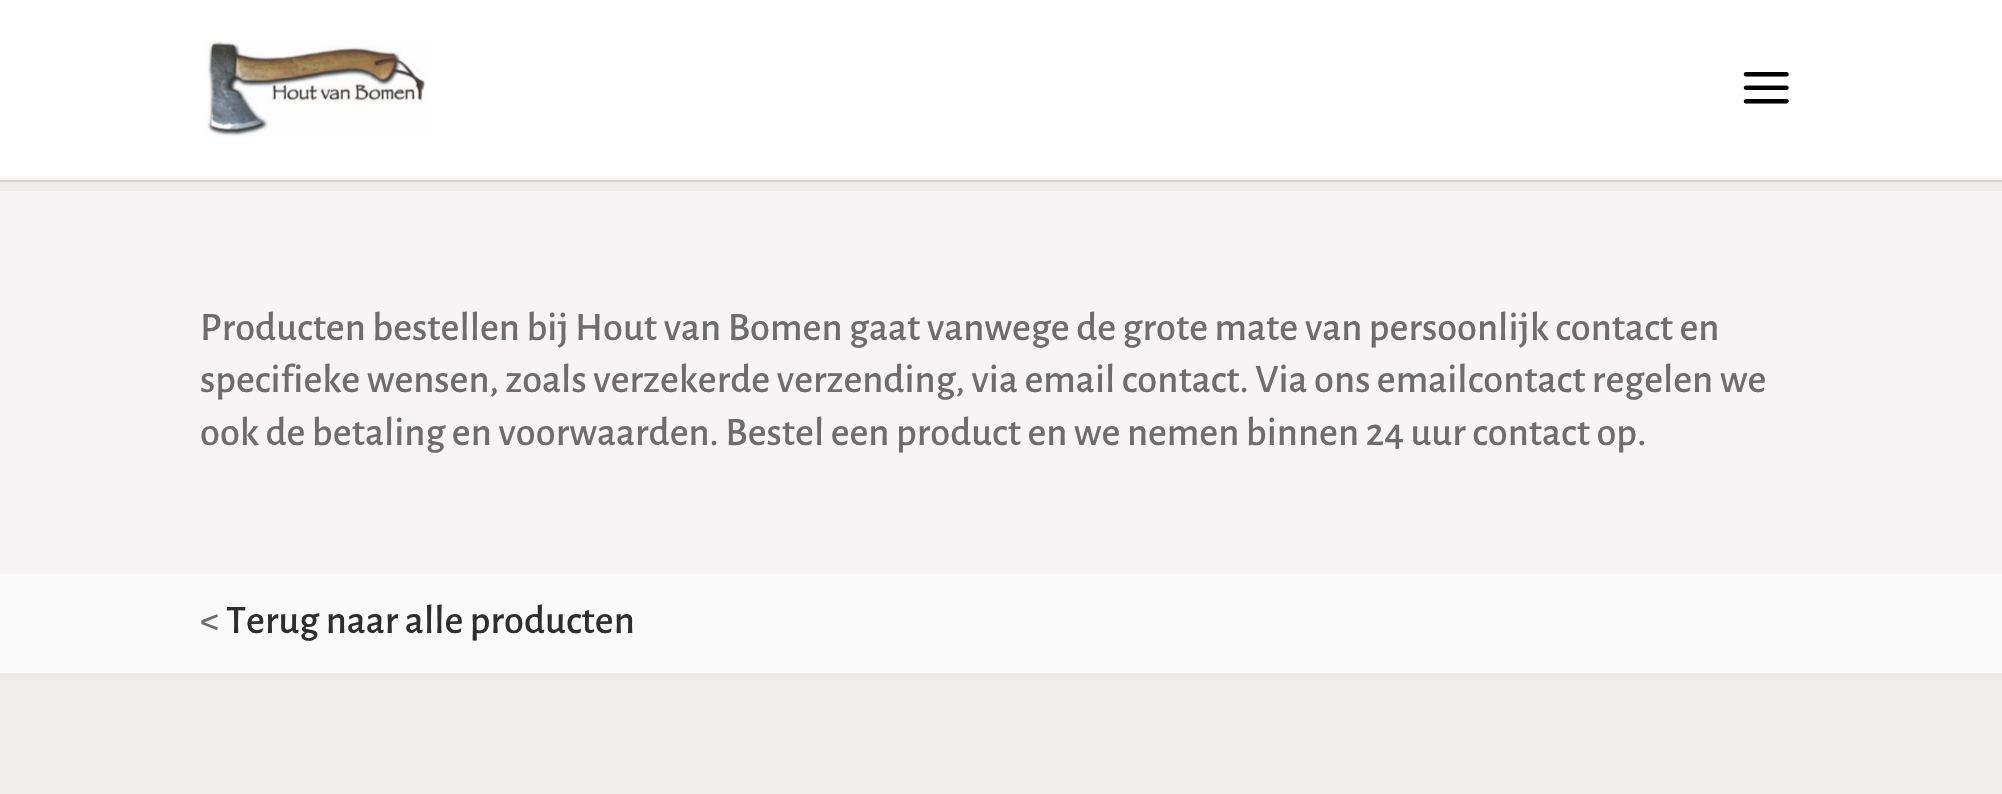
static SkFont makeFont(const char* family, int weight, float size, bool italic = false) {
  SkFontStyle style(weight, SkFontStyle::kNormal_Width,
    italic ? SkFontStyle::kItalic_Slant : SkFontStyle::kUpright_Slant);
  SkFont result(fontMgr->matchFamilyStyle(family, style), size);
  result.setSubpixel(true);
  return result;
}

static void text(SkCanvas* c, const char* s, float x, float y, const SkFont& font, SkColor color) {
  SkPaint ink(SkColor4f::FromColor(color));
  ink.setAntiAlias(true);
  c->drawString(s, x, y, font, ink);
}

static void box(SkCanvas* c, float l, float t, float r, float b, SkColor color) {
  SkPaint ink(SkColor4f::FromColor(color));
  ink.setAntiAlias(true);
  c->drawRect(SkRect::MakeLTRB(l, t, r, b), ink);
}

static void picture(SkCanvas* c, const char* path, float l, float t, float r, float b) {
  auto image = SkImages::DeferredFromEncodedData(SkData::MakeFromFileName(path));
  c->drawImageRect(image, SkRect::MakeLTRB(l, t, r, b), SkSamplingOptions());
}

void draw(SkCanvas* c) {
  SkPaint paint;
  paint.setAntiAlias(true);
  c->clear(0xffefecec);
  paint.setColor(0xffd7d4d4);
  c->drawPath(SkPathBuilder().moveTo(0, 180).lineTo(0, 182).lineTo(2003, 182).lineTo(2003, 2).lineTo(2002, 2).lineTo(2002, 180).close().detach(), paint);
  box(c, 0, 0, 2002, 180, 0xffffffff);
  picture(c, "img_01.png", 207, 40, 426, 137);
  picture(c, "img_02.png", 1743, 72, 1789, 104);
  box(c, 0, 191, 2002, 574, 0xfff6f4f4);
  SkFont face1 = makeFont("Alegreya Sans", 500, 40.5f);
  text(c, "Producten bestellen bij Hout van Bomen gaat vanwege de grote mate van persoonlijk contact en", 200, 340, face1, 0xff6d6d6d);
  text(c, "specifieke wensen, zoals verzekerde verzending, via email contact. Via ons emailcontact regelen we", 200, 392, face1, 0xff6d6d6d);
  text(c, "ook de betaling en voorwaarden. Bestel een product en we nemen binnen 24 uur contact op.", 200, 445, face1, 0xff6d6d6d);
  box(c, 0, 574, 2002, 673, 0xfffbfafa);
  text(c, "<", 200, 633, face1, 0xff6d6d6d);
  text(c, "Terug naar alle producten", 226, 633, face1, 0xff2e2e2e);
}
